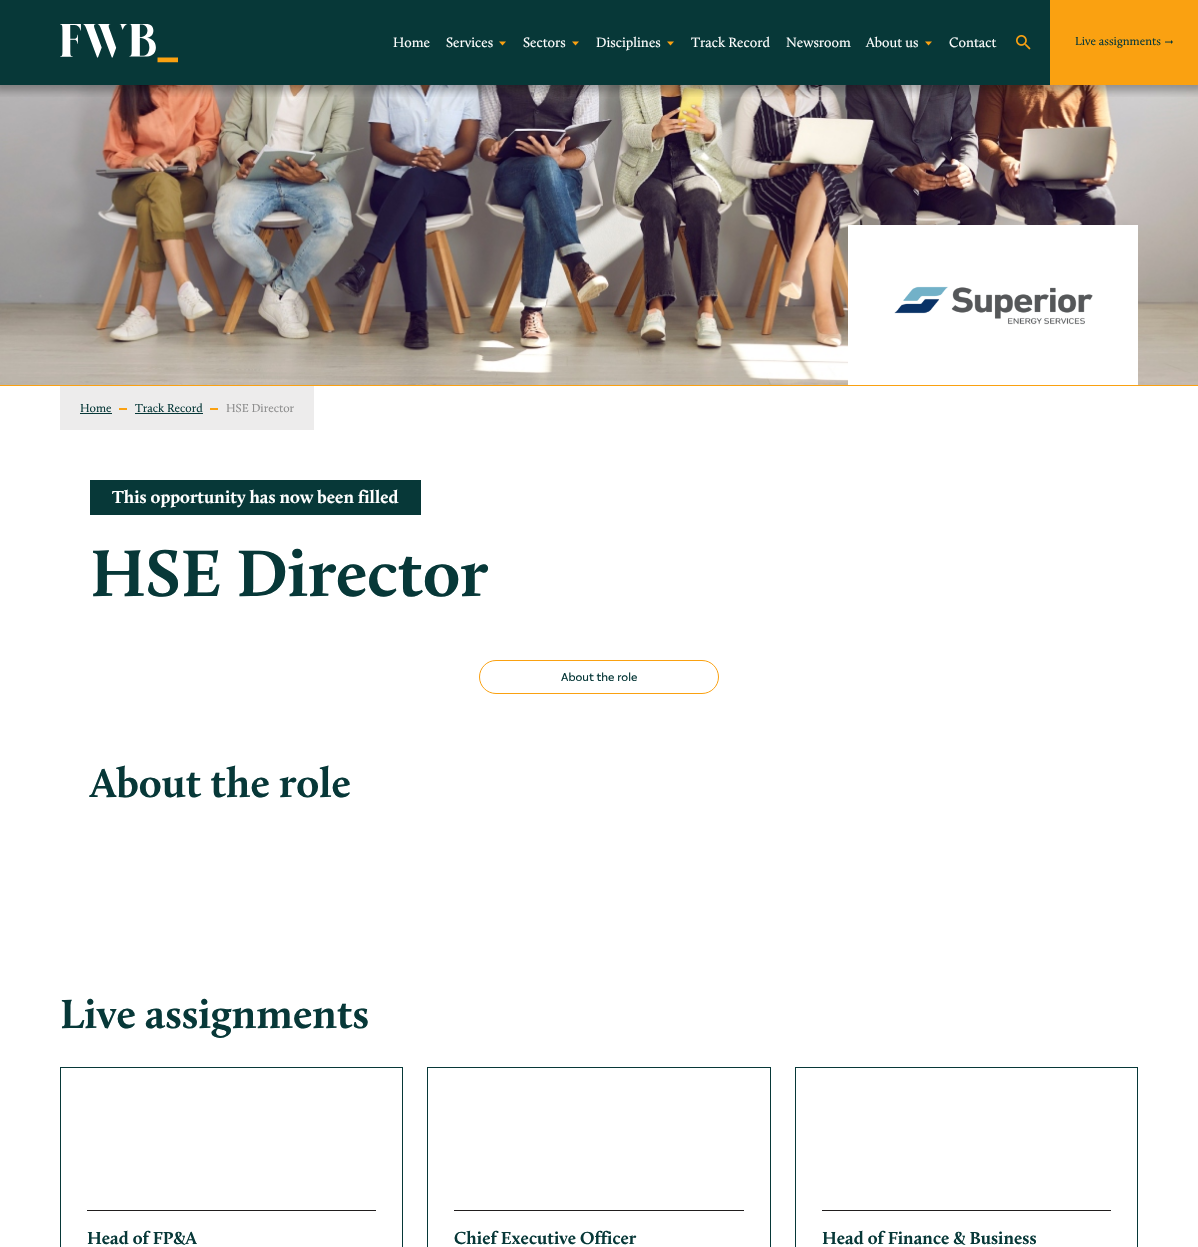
static SkFont makeFont(const char* family, int weight, float size, bool italic = false) {
  SkFontStyle style(weight, SkFontStyle::kNormal_Width,
    italic ? SkFontStyle::kItalic_Slant : SkFontStyle::kUpright_Slant);
  SkFont result(fontMgr->matchFamilyStyle(family, style), size);
  result.setSubpixel(true);
  return result;
}

static void text(SkCanvas* c, const char* s, float x, float y, const SkFont& font, SkColor color) {
  SkPaint ink(SkColor4f::FromColor(color));
  ink.setAntiAlias(true);
  c->drawString(s, x, y, font, ink);
}

static void box(SkCanvas* c, float l, float t, float r, float b, SkColor color) {
  SkPaint ink(SkColor4f::FromColor(color));
  ink.setAntiAlias(true);
  c->drawRect(SkRect::MakeLTRB(l, t, r, b), ink);
}

static void picture(SkCanvas* c, const char* path, float l, float t, float r, float b) {
  auto image = SkImages::DeferredFromEncodedData(SkData::MakeFromFileName(path));
  c->drawImageRect(image, SkRect::MakeLTRB(l, t, r, b), SkSamplingOptions());
}

void draw(SkCanvas* c) {
  SkPaint paint;
  paint.setAntiAlias(true);
  c->clear(0xffffffff);
  box(c, 0, 0, 1050, 85, 0xff073838);
  picture(c, "img_04.png", 0, 85, 1198, 385);
  c->save();
  c->clipRect(SkRect::MakeLTRB(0, 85, 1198, 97));
  paint.setColor(0x4d000000);
  paint.setMaskFilter(SkMaskFilter::MakeBlur(kNormal_SkBlurStyle, 4));
  c->drawRect(SkRect::MakeLTRB(-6, -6, 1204, 91), paint);
  paint.setMaskFilter(nullptr);
  c->restore();
  picture(c, "img_01.png", 60, 24, 178, 63);
  SkFont face1 = makeFont("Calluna", 400, 14);
  text(c, "Home", 393, 47, face1, 0xffffffff);
  text(c, "Services", 446, 47, face1, 0xffffffff);
  paint.setColor(0xfffaa111);
  c->drawPath(SkPathBuilder().moveTo(499, 41.5f).lineTo(502.5f, 45.5f).lineTo(506, 41.5f).close().detach(), paint);
  text(c, "Sectors", 523, 47, face1, 0xffffffff);
  c->drawPath(SkPathBuilder().moveTo(572, 41.5f).lineTo(575.5f, 45.5f).lineTo(579, 41.5f).close().detach(), paint);
  text(c, "Disciplines", 596, 47, face1, 0xffffffff);
  c->drawPath(SkPathBuilder().moveTo(667, 41.5f).lineTo(670.5f, 45.5f).lineTo(674, 41.5f).close().detach(), paint);
  text(c, "Track Record", 691, 47, face1, 0xffffffff);
  text(c, "Newsroom", 786, 47, face1, 0xffffffff);
  text(c, "About us", 866, 47, face1, 0xffffffff);
  c->drawPath(SkPathBuilder().moveTo(925, 41.5f).lineTo(928.5f, 45.5f).lineTo(932, 41.5f).close().detach(), paint);
  text(c, "Contact", 949, 47, face1, 0xffffffff);
  picture(c, "img_02.png", 1016, 35, 1031, 50);
  box(c, 1050, 0, 1198, 85, 0xfffaa111);
  SkFont face2 = makeFont("Calluna", 400, 12);
  text(c, "Live assignments", 1075, 45, face2, 0xff073838);
  picture(c, "img_03.png", 1165, 40, 1173, 44);
  box(c, 0, 385, 1198, 386, 0xfffaa111);
  box(c, 848, 225, 1138, 385, 0xffffffff);
  picture(c, "img_05.png", 894, 286, 1093, 325);
  box(c, 60, 386, 314, 430, 0xffedecec);
  text(c, "Home", 80, 412, face2, 0xff073838);
  box(c, 80, 413, 112, 414, 0xff073838);
  box(c, 119, 408, 127, 410, 0xfffaa111);
  text(c, "Track Record", 135, 412, face2, 0xff073838);
  box(c, 135, 413, 203, 414, 0xff073838);
  box(c, 210, 408, 218, 410, 0xfffaa111);
  text(c, "HSE Director", 226, 412, face2, 0xff8d8d8d);
  box(c, 90, 480, 421, 515, 0xff073838);
  SkFont face3 = makeFont("Calluna", 700, 18);
  text(c, "This opportunity has now been filled", 112, 503, face3, 0xffffffff);
  SkFont face4 = makeFont("Calluna", 700, 68);
  text(c, "HSE Director", 90, 596, face4, 0xff073838);
  paint.setStyle(SkPaint::kStroke_Style);
  paint.setStrokeWidth(1);
  c->drawRoundRect(SkRect::MakeLTRB(479.5f, 660.5f, 718.5f, 693.5f), 16.5f, 16.5f, paint);
  SkFont face5 = makeFont("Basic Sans", 400, 12);
  text(c, "About the role", 561, 681, face5, 0xff073838);
  SkFont face6 = makeFont("Calluna", 700, 42);
  text(c, "About the role", 90, 797, face6, 0xff073838);
  text(c, "Live assignments", 60, 1028, face6, 0xff073838);
  paint.setColor(0xff073838);
  c->drawRect(SkRect::MakeLTRB(60.5f, 1067.5f, 402.5f, 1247.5f), paint);
  box(c, 87, 1210, 376, 1211, 0xff211e1e);
  text(c, "Head of FP&A", 87, 1244, face3, 0xff073838);
  c->drawRect(SkRect::MakeLTRB(427.5f, 1067.5f, 770.5f, 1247.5f), paint);
  box(c, 454, 1210, 744, 1211, 0xff211e1e);
  text(c, "Chief Executive Officer", 454, 1244, face3, 0xff073838);
  c->drawRect(SkRect::MakeLTRB(795.5f, 1067.5f, 1137.5f, 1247.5f), paint);
  box(c, 822, 1210, 1111, 1211, 0xff211e1e);
  text(c, "Head of Finance & Business", 822, 1244, face3, 0xff073838);
}
